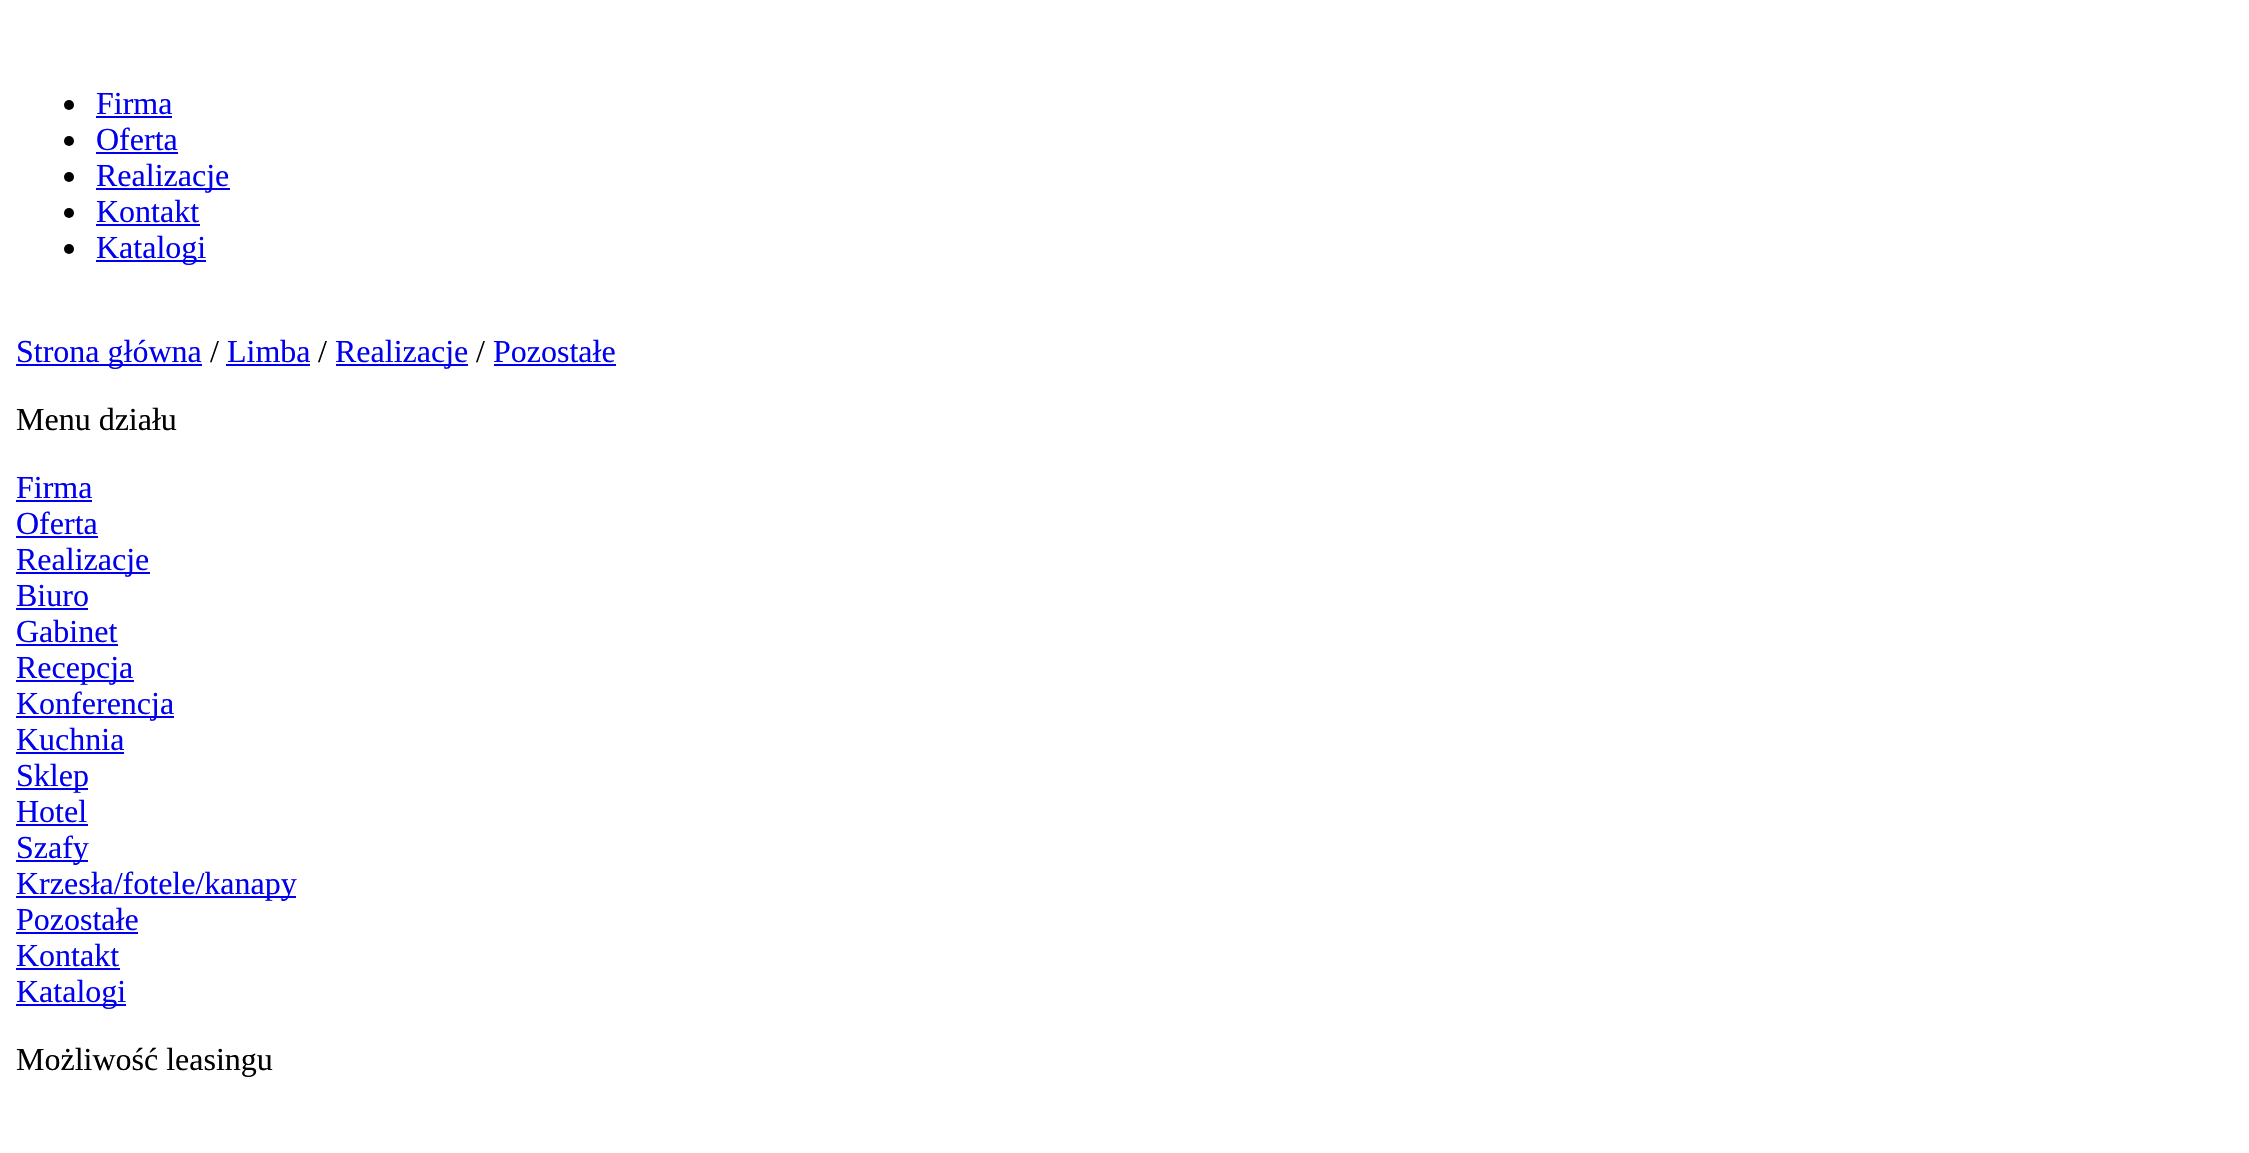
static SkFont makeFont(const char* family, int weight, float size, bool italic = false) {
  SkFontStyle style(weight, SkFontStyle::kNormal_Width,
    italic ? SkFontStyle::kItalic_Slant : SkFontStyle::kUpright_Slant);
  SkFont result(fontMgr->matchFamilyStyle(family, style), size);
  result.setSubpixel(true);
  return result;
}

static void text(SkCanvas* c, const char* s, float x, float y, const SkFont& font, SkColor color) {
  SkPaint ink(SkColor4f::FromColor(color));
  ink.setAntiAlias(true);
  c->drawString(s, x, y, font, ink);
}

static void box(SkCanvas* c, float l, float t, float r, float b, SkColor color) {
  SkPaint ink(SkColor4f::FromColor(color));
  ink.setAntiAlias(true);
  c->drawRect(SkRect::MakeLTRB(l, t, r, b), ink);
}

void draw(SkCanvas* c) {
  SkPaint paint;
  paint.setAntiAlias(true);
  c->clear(0xffffffff);
  paint.setColor(0xff000000);
  c->drawCircle(69, 105, 5, paint);
  SkFont face1 = makeFont("Liberation Serif", 400, 32);
  text(c, "Firma", 96, 114, face1, 0xff0000ee);
  box(c, 96, 116, 172, 118, 0xff0000ee);
  c->drawCircle(69, 141, 5, paint);
  text(c, "Oferta", 96, 150, face1, 0xff0000ee);
  box(c, 96, 152, 178, 154, 0xff0000ee);
  c->drawCircle(69, 177, 5, paint);
  box(c, 96, 188, 230, 190, 0xff0000ee);
  text(c, "Realizacje", 96, 186, face1, 0xff0000ee);
  c->drawCircle(69, 213, 5, paint);
  text(c, "Kontakt", 96, 222, face1, 0xff0000ee);
  box(c, 96, 224, 200, 226, 0xff0000ee);
  c->drawCircle(69, 249, 5, paint);
  box(c, 96, 260, 206, 262, 0xff0000ee);
  text(c, "Katalogi", 96, 258, face1, 0xff0000ee);
  box(c, 16, 364, 202, 366, 0xff0000ee);
  text(c, "Strona główna", 16, 362, face1, 0xff0000ee);
  text(c, "/", 210, 362, face1, 0xff000000);
  text(c, "Limba", 227, 362, face1, 0xff0000ee);
  box(c, 226, 364, 310, 366, 0xff0000ee);
  text(c, "/", 318, 362, face1, 0xff000000);
  box(c, 336, 364, 468, 366, 0xff0000ee);
  text(c, "Realizacje", 335, 362, face1, 0xff0000ee);
  text(c, "/", 476, 362, face1, 0xff000000);
  text(c, "Pozostałe", 493, 362, face1, 0xff0000ee);
  box(c, 494, 364, 616, 366, 0xff0000ee);
  text(c, "Menu działu", 16, 430, face1, 0xff000000);
  text(c, "Firma", 16, 498, face1, 0xff0000ee);
  box(c, 16, 500, 92, 502, 0xff0000ee);
  text(c, "Oferta", 16, 534, face1, 0xff0000ee);
  box(c, 16, 536, 98, 538, 0xff0000ee);
  box(c, 16, 572, 150, 574, 0xff0000ee);
  text(c, "Realizacje", 16, 570, face1, 0xff0000ee);
  text(c, "Biuro", 16, 606, face1, 0xff0000ee);
  box(c, 16, 608, 88, 610, 0xff0000ee);
  text(c, "Gabinet", 16, 642, face1, 0xff0000ee);
  box(c, 16, 644, 118, 646, 0xff0000ee);
  box(c, 16, 680, 134, 682, 0xff0000ee);
  text(c, "Recepcja", 16, 678, face1, 0xff0000ee);
  box(c, 16, 716, 174, 718, 0xff0000ee);
  text(c, "Konferencja", 16, 714, face1, 0xff0000ee);
  text(c, "Kuchnia", 16, 750, face1, 0xff0000ee);
  box(c, 16, 752, 124, 754, 0xff0000ee);
  box(c, 16, 788, 88, 790, 0xff0000ee);
  text(c, "Sklep", 16, 786, face1, 0xff0000ee);
  text(c, "Hotel", 16, 822, face1, 0xff0000ee);
  box(c, 16, 824, 88, 826, 0xff0000ee);
  box(c, 16, 860, 88, 862, 0xff0000ee);
  text(c, "Szafy", 16, 858, face1, 0xff0000ee);
  box(c, 16, 896, 296, 898, 0xff0000ee);
  text(c, "Krzesła/fotele/kanapy", 16, 894, face1, 0xff0000ee);
  text(c, "Pozostałe", 16, 930, face1, 0xff0000ee);
  box(c, 16, 932, 138, 934, 0xff0000ee);
  text(c, "Kontakt", 16, 966, face1, 0xff0000ee);
  box(c, 16, 968, 120, 970, 0xff0000ee);
  box(c, 16, 1004, 126, 1006, 0xff0000ee);
  text(c, "Katalogi", 16, 1002, face1, 0xff0000ee);
  text(c, "Możliwość leasingu", 16, 1070, face1, 0xff000000);
}
